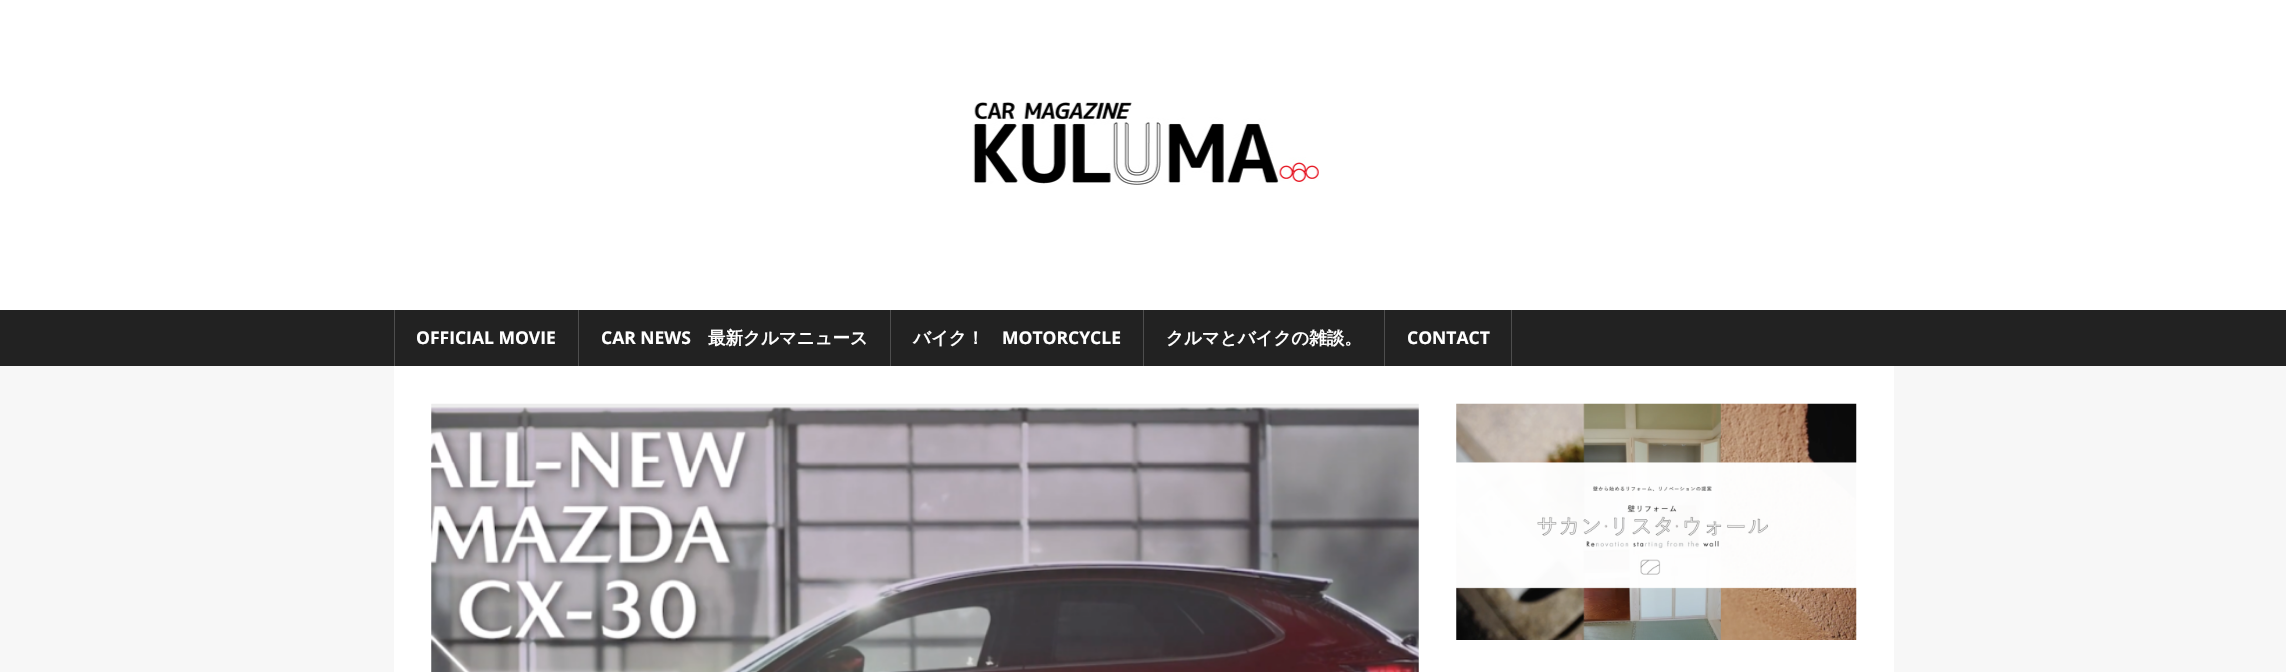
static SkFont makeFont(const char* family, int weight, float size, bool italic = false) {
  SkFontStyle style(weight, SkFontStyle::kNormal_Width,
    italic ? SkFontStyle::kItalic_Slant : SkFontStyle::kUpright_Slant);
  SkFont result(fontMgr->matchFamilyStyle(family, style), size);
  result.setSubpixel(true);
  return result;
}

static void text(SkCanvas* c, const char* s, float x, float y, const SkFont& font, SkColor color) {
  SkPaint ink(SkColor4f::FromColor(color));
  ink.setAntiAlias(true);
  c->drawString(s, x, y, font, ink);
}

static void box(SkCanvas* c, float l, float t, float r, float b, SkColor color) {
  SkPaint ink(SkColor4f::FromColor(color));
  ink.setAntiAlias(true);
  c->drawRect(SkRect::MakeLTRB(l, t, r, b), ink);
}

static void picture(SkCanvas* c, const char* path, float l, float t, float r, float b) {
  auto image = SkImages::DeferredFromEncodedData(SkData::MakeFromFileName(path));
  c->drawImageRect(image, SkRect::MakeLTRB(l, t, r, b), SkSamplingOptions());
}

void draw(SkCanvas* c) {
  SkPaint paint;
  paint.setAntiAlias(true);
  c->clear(0xfff7f7f7);
  box(c, 0, 0, 2286, 310, 0xffffffff);
  picture(c, "img_01.png", 973, 102, 1319, 185);
  box(c, 0, 310, 2286, 366, 0xff222222);
  box(c, 394, 310, 395, 366, 0xff4e4e4e);
  box(c, 578, 310, 579, 366, 0xff4e4e4e);
  SkFont face1 = makeFont("Open Sans", 700, 17.5f);
  text(c, "OFFICIAL MOVIE", 416, 344, face1, 0xffffffff);
  box(c, 890, 310, 891, 366, 0xff4e4e4e);
  text(c, "CAR NEWS", 601, 344, face1, 0xffffffff);
  SkFont face2 = makeFont("WenQuanYi Zen Hei", 700, 17.5f);
  text(c, "最新クルマニュース", 708, 344, face2, 0xffffffff);
  box(c, 1143, 310, 1144, 366, 0xff4e4e4e);
  text(c, "バイク！", 913, 344, face2, 0xffffffff);
  text(c, "MOTORCYCLE", 1002, 344, face1, 0xffffffff);
  box(c, 1384, 310, 1385, 366, 0xff4e4e4e);
  text(c, "クルマとバイクの雑談。", 1166, 344, face2, 0xffffffff);
  box(c, 1511, 310, 1512, 366, 0xff4e4e4e);
  text(c, "CONTACT", 1407, 344, face1, 0xffffffff);
  box(c, 394, 366, 1894, 672, 0xffffffff);
  picture(c, "img_02.png", 431, 403, 1419, 672);
  picture(c, "img_03.png", 1456, 403, 1857, 640);
}
